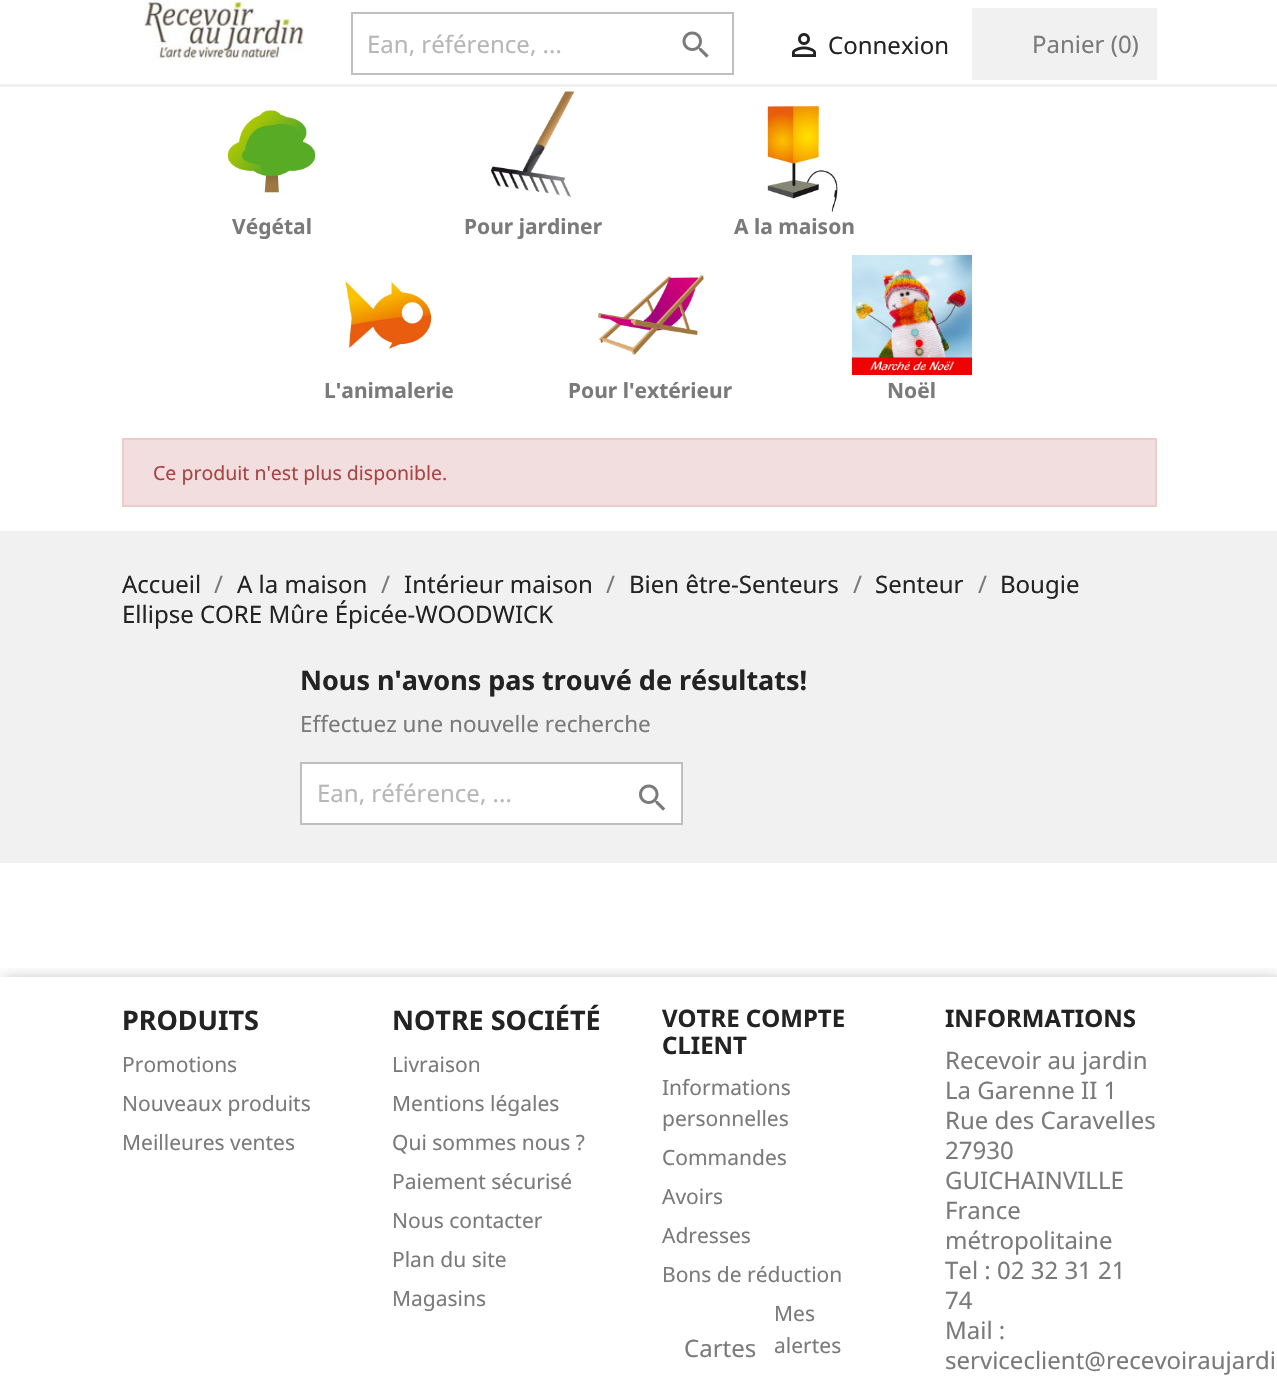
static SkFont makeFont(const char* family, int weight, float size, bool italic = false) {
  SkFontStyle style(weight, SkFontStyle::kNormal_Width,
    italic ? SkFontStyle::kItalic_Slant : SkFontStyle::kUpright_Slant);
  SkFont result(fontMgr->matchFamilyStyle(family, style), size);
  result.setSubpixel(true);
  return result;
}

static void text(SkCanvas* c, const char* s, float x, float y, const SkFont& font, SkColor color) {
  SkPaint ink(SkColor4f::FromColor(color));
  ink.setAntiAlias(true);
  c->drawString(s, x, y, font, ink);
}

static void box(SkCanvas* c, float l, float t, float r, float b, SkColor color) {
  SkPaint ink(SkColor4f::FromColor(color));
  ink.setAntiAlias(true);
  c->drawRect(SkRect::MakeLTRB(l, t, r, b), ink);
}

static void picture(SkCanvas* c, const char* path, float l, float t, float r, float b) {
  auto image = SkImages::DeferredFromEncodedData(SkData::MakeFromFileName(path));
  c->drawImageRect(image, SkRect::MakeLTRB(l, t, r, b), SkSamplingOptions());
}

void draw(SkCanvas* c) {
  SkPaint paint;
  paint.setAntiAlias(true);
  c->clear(0xffffffff);
  box(c, 0, 84, 1277, 87, 0xfff1f1f1);
  picture(c, "img_01.png", 144, 0, 305, 60);
  paint.setStyle(SkPaint::kStroke_Style);
  paint.setStrokeWidth(2);
  paint.setColor(0xffbfbfbf);
  c->drawRect(SkRect::MakeLTRB(352, 13, 733, 74), paint);
  SkFont face1 = makeFont("Noto Sans", 400, 24);
  text(c, "Ean, référence, ...", 367, 53, face1, 0xffb7b7b7);
  picture(c, "img_02.png", 682, 31, 709, 58);
  picture(c, "img_03.png", 791, 33, 817, 57);
  text(c, "Connexion", 828, 54, face1, 0xff232323);
  box(c, 972, 8, 1157, 80, 0xfff1f1f1);
  text(c, "Panier (0)", 1032, 53, face1, 0xff7a7a7a);
  picture(c, "img_04.png", 227, 110, 316, 193);
  SkFont face2 = makeFont("Noto Sans", 700, 21);
  text(c, "Végétal", 232, 234, face2, 0xff7a7a7a);
  picture(c, "img_05.png", 491, 91, 575, 197);
  text(c, "Pour jardiner", 464, 234, face2, 0xff7a7a7a);
  picture(c, "img_06.png", 767, 105, 838, 212);
  text(c, "A la maison", 734, 234, face2, 0xff7a7a7a);
  picture(c, "img_07.png", 345, 278, 432, 352);
  text(c, "L'animalerie", 324, 398, face2, 0xff7a7a7a);
  picture(c, "img_08.png", 597, 275, 704, 355);
  text(c, "Pour l'extérieur", 568, 398, face2, 0xff7a7a7a);
  picture(c, "img_09.png", 852, 255, 972, 375);
  text(c, "Noël", 887, 398, face2, 0xff7a7a7a);
  paint.setStyle(SkPaint::kFill_Style);
  paint.setColor(0xfff2dede);
  c->drawRect(SkRect::MakeLTRB(123, 439, 1156, 506), paint);
  paint.setStyle(SkPaint::kStroke_Style);
  paint.setColor(0xffebcccc);
  c->drawRect(SkRect::MakeLTRB(123, 439, 1156, 506), paint);
  SkFont face3 = makeFont("Noto Sans", 400, 19.5f);
  text(c, "Ce produit n'est plus disponible.", 153, 480, face3, 0xffa94442);
  box(c, 0, 531, 1277, 863, 0xfff1f1f1);
  text(c, "Accueil", 122, 593, face1, 0xff232323);
  text(c, "/", 214, 593, face1, 0xff7a7a7a);
  text(c, "A la maison", 237, 593, face1, 0xff232323);
  text(c, "/", 381, 593, face1, 0xff7a7a7a);
  text(c, "Intérieur maison", 404, 593, face1, 0xff232323);
  text(c, "/", 606, 593, face1, 0xff7a7a7a);
  text(c, "Bien être-Senteurs", 629, 593, face1, 0xff232323);
  text(c, "/", 853, 593, face1, 0xff7a7a7a);
  text(c, "Senteur", 875, 593, face1, 0xff232323);
  text(c, "/", 978, 593, face1, 0xff7a7a7a);
  text(c, "Bougie", 1000, 593, face1, 0xff232323);
  text(c, "Ellipse CORE Mûre Épicée-WOODWICK", 122, 623, face1, 0xff232323);
  SkFont face4 = makeFont("Noto Sans", 700, 27);
  text(c, "Nous n'avons pas trouvé de résultats!", 300, 690, face4, 0xff232323);
  SkFont face5 = makeFont("Noto Sans", 400, 22.5f);
  text(c, "Effectuez une nouvelle recherche", 300, 732, face5, 0xff7a7a7a);
  paint.setStyle(SkPaint::kFill_Style);
  paint.setColor(0xffffffff);
  c->drawRect(SkRect::MakeLTRB(301, 763, 682, 824), paint);
  paint.setStyle(SkPaint::kStroke_Style);
  paint.setColor(0xffbfbfbf);
  c->drawRect(SkRect::MakeLTRB(301, 763, 682, 824), paint);
  text(c, "Ean, référence, ...", 317, 802, face1, 0xffb7b7b7);
  picture(c, "img_10.png", 639, 784, 666, 811);
  c->save();
  c->clipRect(SkRect::MakeLTRB(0, 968, 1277, 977));
  paint.setStyle(SkPaint::kFill_Style);
  paint.setColor(0x4d000000);
  paint.setMaskFilter(SkMaskFilter::MakeBlur(kNormal_SkBlurStyle, 8));
  c->drawRect(SkRect::MakeLTRB(3, 980, 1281, 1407), paint);
  paint.setMaskFilter(nullptr);
  c->restore();
  text(c, "PRODUITS", 122, 1030, face4, 0xff232323);
  SkFont face6 = makeFont("Noto Sans", 400, 21);
  text(c, "Promotions", 122, 1072, face6, 0xff7a7a7a);
  text(c, "Nouveaux produits", 122, 1111, face6, 0xff7a7a7a);
  text(c, "Meilleures ventes", 122, 1150, face6, 0xff7a7a7a);
  text(c, "NOTRE SOCIÉTÉ", 392, 1030, face4, 0xff232323);
  text(c, "Livraison", 392, 1072, face6, 0xff7a7a7a);
  text(c, "Mentions légales", 392, 1111, face6, 0xff7a7a7a);
  text(c, "Qui sommes nous ?", 392, 1150, face6, 0xff7a7a7a);
  text(c, "Paiement sécurisé", 392, 1189, face6, 0xff7a7a7a);
  text(c, "Nous contacter", 392, 1228, face6, 0xff7a7a7a);
  text(c, "Plan du site", 392, 1267, face6, 0xff7a7a7a);
  text(c, "Magasins", 392, 1306, face6, 0xff7a7a7a);
  SkFont face7 = makeFont("Noto Sans", 700, 24);
  text(c, "VOTRE COMPTE", 662, 1027, face7, 0xff232323);
  text(c, "CLIENT", 662, 1054, face7, 0xff232323);
  text(c, "Informations", 662, 1095, face6, 0xff7a7a7a);
  text(c, "personnelles", 662, 1126, face6, 0xff7a7a7a);
  text(c, "Commandes", 662, 1165, face6, 0xff7a7a7a);
  text(c, "Avoirs", 662, 1204, face6, 0xff7a7a7a);
  text(c, "Adresses", 662, 1243, face6, 0xff7a7a7a);
  text(c, "Bons de réduction", 662, 1282, face6, 0xff7a7a7a);
  text(c, "Cartes", 684, 1357, face1, 0xff7a7a7a);
  text(c, "Mes", 774, 1321, face6, 0xff7a7a7a);
  text(c, "alertes", 774, 1353, face6, 0xff7a7a7a);
  text(c, "INFORMATIONS", 945, 1027, face7, 0xff232323);
  text(c, "Recevoir au jardin", 945, 1069, face1, 0xff7a7a7a);
  text(c, "La Garenne II 1", 945, 1099, face1, 0xff7a7a7a);
  text(c, "Rue des Caravelles", 945, 1129, face1, 0xff7a7a7a);
  text(c, "27930", 945, 1159, face1, 0xff7a7a7a);
  text(c, "GUICHAINVILLE", 945, 1189, face1, 0xff7a7a7a);
  text(c, "France", 945, 1219, face1, 0xff7a7a7a);
  text(c, "métropolitaine", 945, 1249, face1, 0xff7a7a7a);
  text(c, "Tel : 02 32 31 21", 945, 1279, face1, 0xff7a7a7a);
  text(c, "74", 945, 1309, face1, 0xff7a7a7a);
  text(c, "Mail :", 945, 1339, face1, 0xff7a7a7a);
  text(c, "serviceclient@recevoiraujardi", 945, 1369, face1, 0xff7a7a7a);
}
